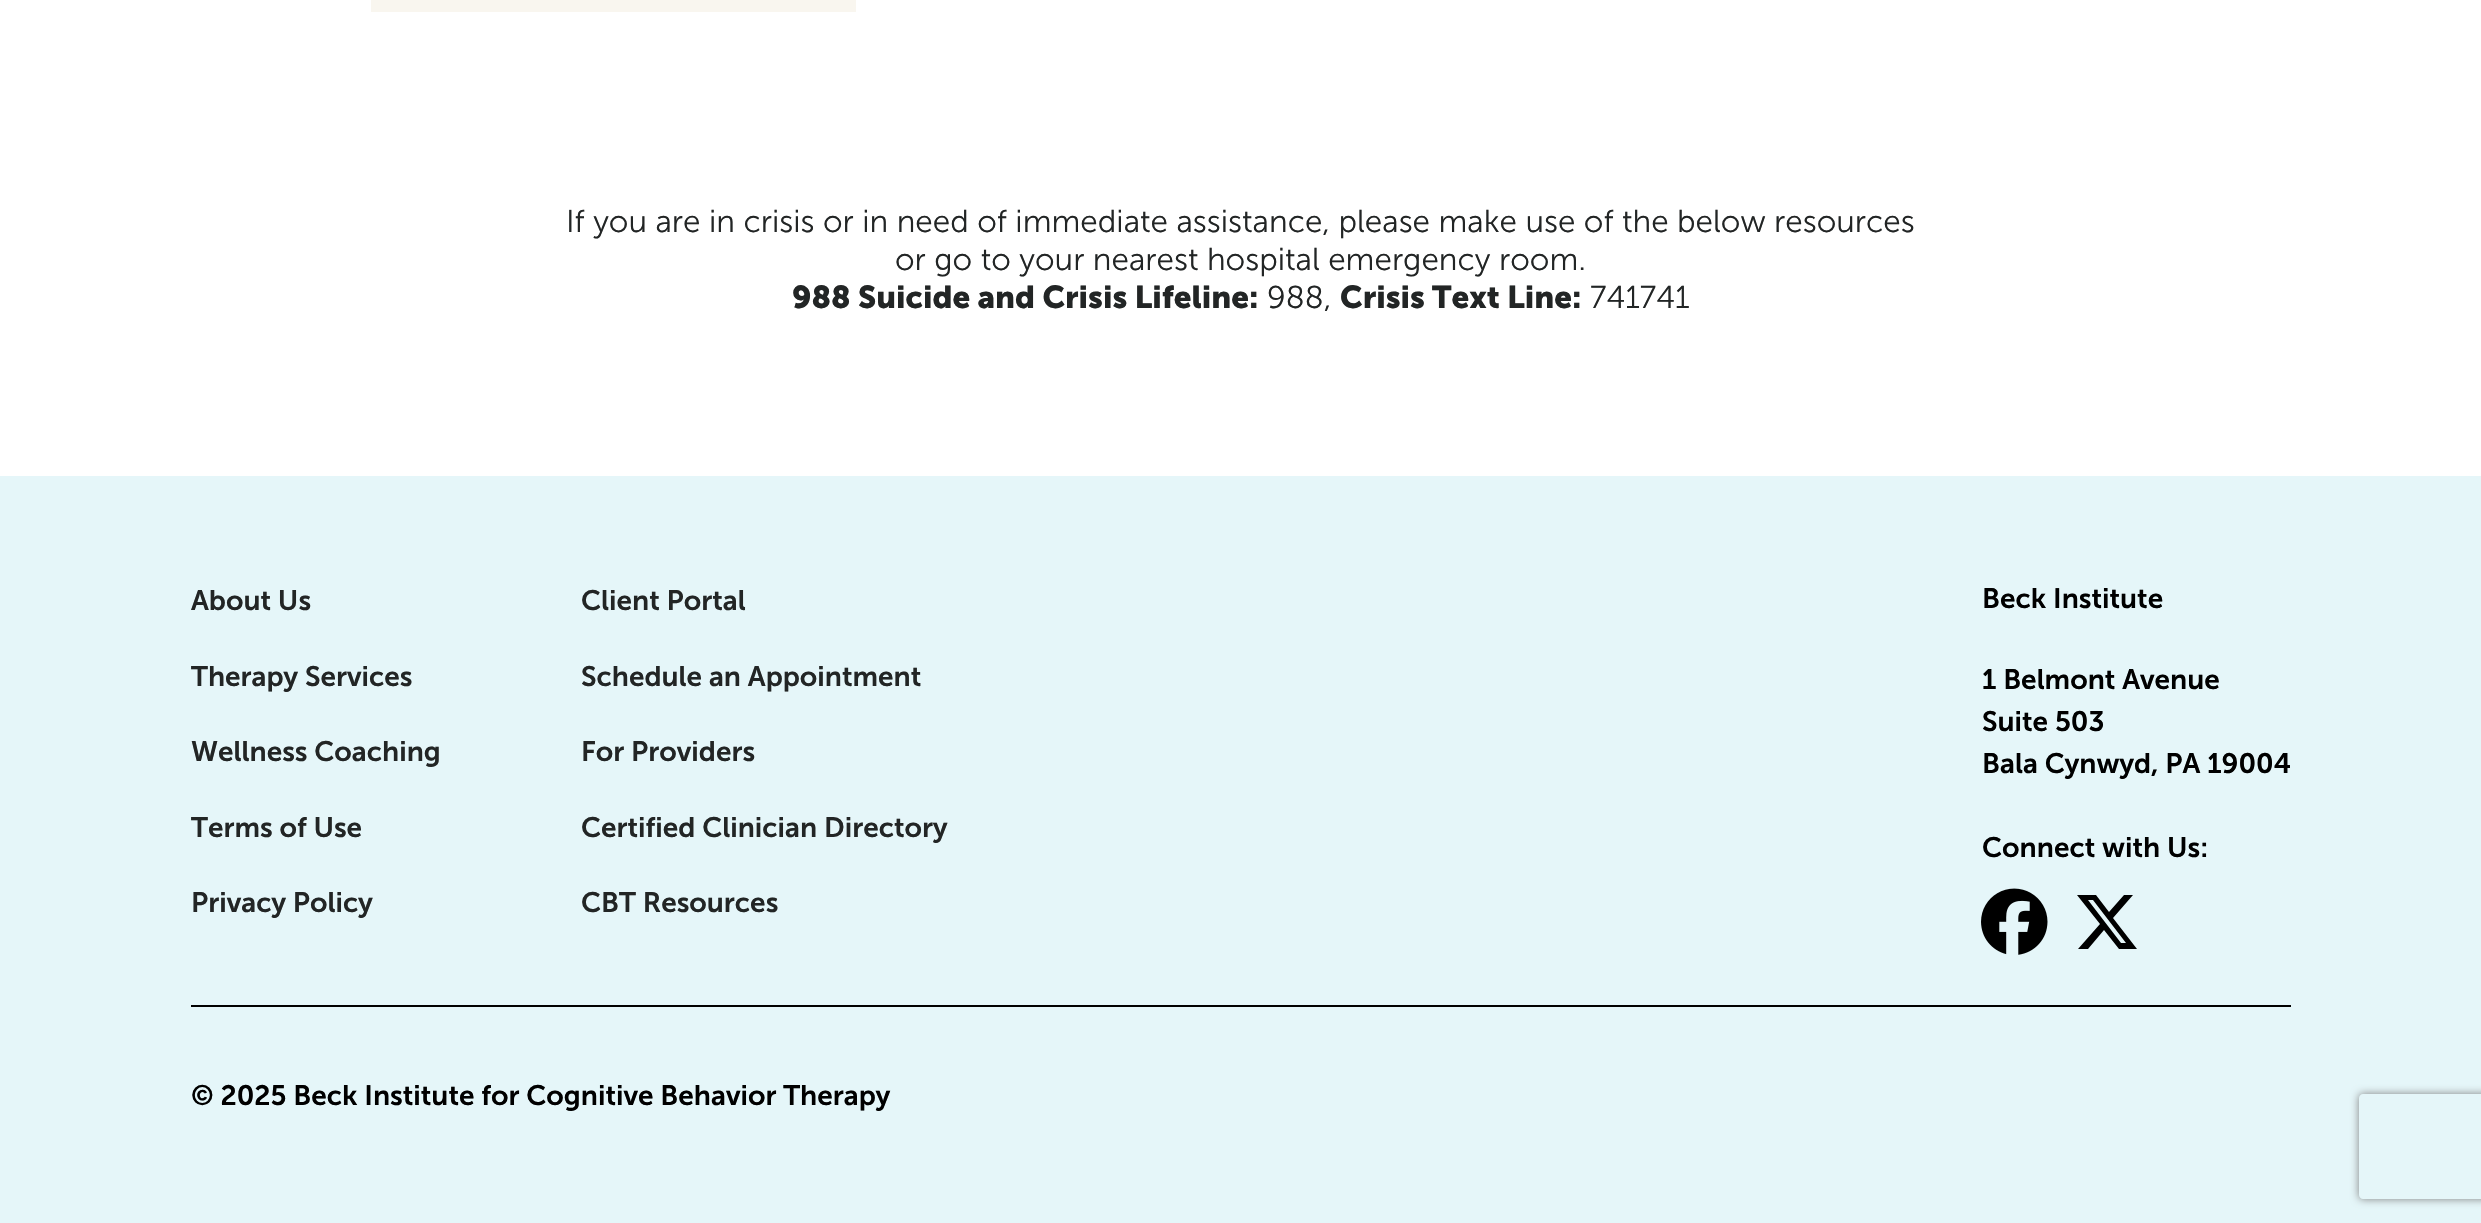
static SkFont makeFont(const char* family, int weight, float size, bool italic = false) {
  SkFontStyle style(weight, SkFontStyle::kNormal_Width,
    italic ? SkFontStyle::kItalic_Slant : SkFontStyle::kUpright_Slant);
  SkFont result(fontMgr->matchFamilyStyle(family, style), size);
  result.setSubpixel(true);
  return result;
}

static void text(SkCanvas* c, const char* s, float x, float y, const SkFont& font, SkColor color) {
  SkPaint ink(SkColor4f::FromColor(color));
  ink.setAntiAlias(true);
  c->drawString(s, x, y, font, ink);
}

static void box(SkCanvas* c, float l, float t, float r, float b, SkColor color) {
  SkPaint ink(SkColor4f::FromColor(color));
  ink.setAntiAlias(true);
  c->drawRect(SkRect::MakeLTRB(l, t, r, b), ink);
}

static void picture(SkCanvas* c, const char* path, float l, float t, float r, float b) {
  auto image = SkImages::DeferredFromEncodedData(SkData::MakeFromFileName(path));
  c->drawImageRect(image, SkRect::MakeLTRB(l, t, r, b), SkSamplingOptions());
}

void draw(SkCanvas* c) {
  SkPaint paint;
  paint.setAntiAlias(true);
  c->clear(0xffffffff);
  box(c, 371, 0, 856, 12, 0xfff9f6ef);
  SkFont face1 = makeFont("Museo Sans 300", 300, 31.5f);
  text(c, "If you are in crisis or in need of immediate assistance, please make use of the below resources", 566, 232, face1, 0xff222525);
  text(c, "or go to your nearest hospital emergency room.", 895, 270, face1, 0xff222525);
  SkFont face2 = makeFont("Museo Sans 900", 700, 31.5f);
  text(c, "988 Suicide and Crisis Lifeline:", 792, 308, face2, 0xff222525);
  text(c, "988,", 1267, 308, face1, 0xff222525);
  text(c, "Crisis Text Line:", 1340, 308, face2, 0xff222525);
  text(c, "741741", 1590, 308, face1, 0xff222525);
  box(c, 0, 476, 2481, 1223, 0xffe5f6f9);
  SkFont face3 = makeFont("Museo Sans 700", 600, 28);
  text(c, "About Us", 191, 610, face3, 0xff222525);
  text(c, "Therapy Services", 191, 686, face3, 0xff222525);
  text(c, "Wellness Coaching", 191, 761, face3, 0xff222525);
  text(c, "Terms of Use", 191, 837, face3, 0xff222525);
  text(c, "Privacy Policy", 191, 912, face3, 0xff222525);
  text(c, "Client Portal", 581, 610, face3, 0xff222525);
  text(c, "Schedule an Appointment", 581, 686, face3, 0xff222525);
  text(c, "For Providers", 581, 761, face3, 0xff222525);
  text(c, "Certified Clinician Directory", 581, 837, face3, 0xff222525);
  text(c, "CBT Resources", 581, 912, face3, 0xff222525);
  text(c, "Beck Institute", 1982, 608, face3, 0xff000000);
  text(c, "1 Belmont Avenue", 1982, 689, face3, 0xff000000);
  text(c, "Suite 503", 1982, 731, face3, 0xff000000);
  text(c, "Bala Cynwyd, PA 19004", 1982, 773, face3, 0xff000000);
  text(c, "Connect with Us:", 1982, 857, face3, 0xff000000);
  picture(c, "img_01.png", 1981, 888, 2048, 955);
  paint.setColor(0xff000000);
  c->drawPath(SkPathBuilder().moveTo(2124, 895).lineTo(2133, 895).lineTo(2124, 895).lineTo(2133, 895).lineTo(2113, 918).lineTo(2137, 949).lineTo(2119, 949).lineTo(2104, 930).lineTo(2088, 949).lineTo(2078, 949).lineTo(2100, 924).lineTo(2077, 895).lineTo(2096, 895).lineTo(2109, 912).close().moveTo(2121, 943).lineTo(2126, 943).lineTo(2121, 943).lineTo(2126, 943).lineTo(2093, 900).lineTo(2088, 900).close().detach(), paint);
  box(c, 191, 1005, 2291, 1007, 0xff000000);
  text(c, "© 2025 Beck Institute for Cognitive Behavior Therapy", 191, 1105, face3, 0xff000000);
  c->save();
  c->clipPath(SkPathBuilder(SkPathFillType::kEvenOdd).moveTo(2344, 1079).lineTo(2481, 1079).lineTo(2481, 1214).lineTo(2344, 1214).close().moveTo(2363, 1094).lineTo(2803, 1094).cubicTo(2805, 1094, 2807, 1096, 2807, 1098).lineTo(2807, 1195).cubicTo(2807, 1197, 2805, 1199, 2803, 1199).lineTo(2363, 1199).cubicTo(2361, 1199, 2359, 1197, 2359, 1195).lineTo(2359, 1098).cubicTo(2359, 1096, 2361, 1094, 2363, 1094).close().detach(), true);
  paint.setColor(0xff808080);
  paint.setMaskFilter(SkMaskFilter::MakeBlur(kNormal_SkBlurStyle, 4.5f));
  c->drawRoundRect(SkRect::MakeLTRB(2359, 1094, 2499, 1199), 4, 4, paint);
  paint.setMaskFilter(nullptr);
  c->restore();
}
